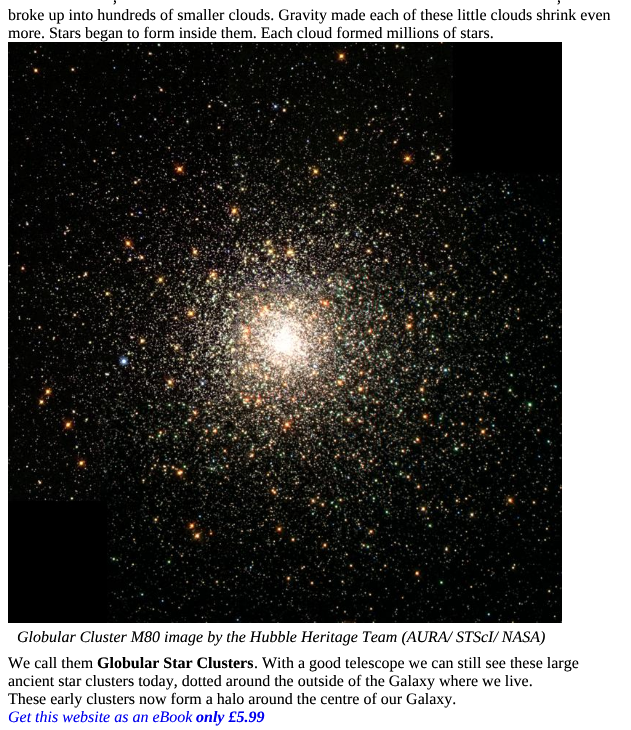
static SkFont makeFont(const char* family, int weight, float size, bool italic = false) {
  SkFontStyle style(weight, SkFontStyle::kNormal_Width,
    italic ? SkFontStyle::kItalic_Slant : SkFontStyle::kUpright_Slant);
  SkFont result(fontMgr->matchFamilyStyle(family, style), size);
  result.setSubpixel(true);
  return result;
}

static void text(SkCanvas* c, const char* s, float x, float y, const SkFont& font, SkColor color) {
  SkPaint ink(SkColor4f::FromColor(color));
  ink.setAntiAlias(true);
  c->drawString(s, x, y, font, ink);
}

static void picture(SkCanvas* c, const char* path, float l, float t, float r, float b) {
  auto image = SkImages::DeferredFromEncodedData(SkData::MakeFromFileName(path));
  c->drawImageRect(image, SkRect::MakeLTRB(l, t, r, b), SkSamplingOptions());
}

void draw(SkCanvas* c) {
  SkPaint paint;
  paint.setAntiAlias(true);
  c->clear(0xffffffff);
  SkFont face1 = makeFont("Liberation Serif", 400, 16);
  text(c, ",", 113, 2, face1, 0xff000000);
  text(c, ",", 557, 2, face1, 0xff000000);
  text(c, "broke up into hundreds of smaller clouds. Gravity made each of these little clouds shrink even", 8, 20, face1, 0xff000000);
  text(c, "more. Stars began to form inside them. Each cloud formed millions of stars.", 8, 38, face1, 0xff000000);
  picture(c, "img_01.png", 8, 42, 562, 623);
  SkFont face2 = makeFont("Liberation Serif", 400, 16, true);
  text(c, "Globular Cluster M80 image by the Hubble Heritage Team (AURA/ STScI/ NASA)", 17, 642, face2, 0xff000000);
  text(c, "We call them", 8, 668, face1, 0xff000000);
  SkFont face3 = makeFont("Liberation Serif", 700, 16);
  text(c, "Globular Star Clusters", 97, 668, face3, 0xff000000);
  text(c, ". With a good telescope we can still see these large", 254, 668, face1, 0xff000000);
  text(c, "ancient star clusters today, dotted around the outside of the Galaxy where we live.", 8, 686, face1, 0xff000000);
  text(c, "These early clusters now form a halo around the centre of our Galaxy.", 8, 704, face1, 0xff000000);
  text(c, "Get this website as an eBook", 8, 722, face2, 0xff0000ee);
  SkFont face4 = makeFont("Liberation Serif", 700, 16, true);
  text(c, "only £5.99", 196, 722, face4, 0xff0000ee);
}
